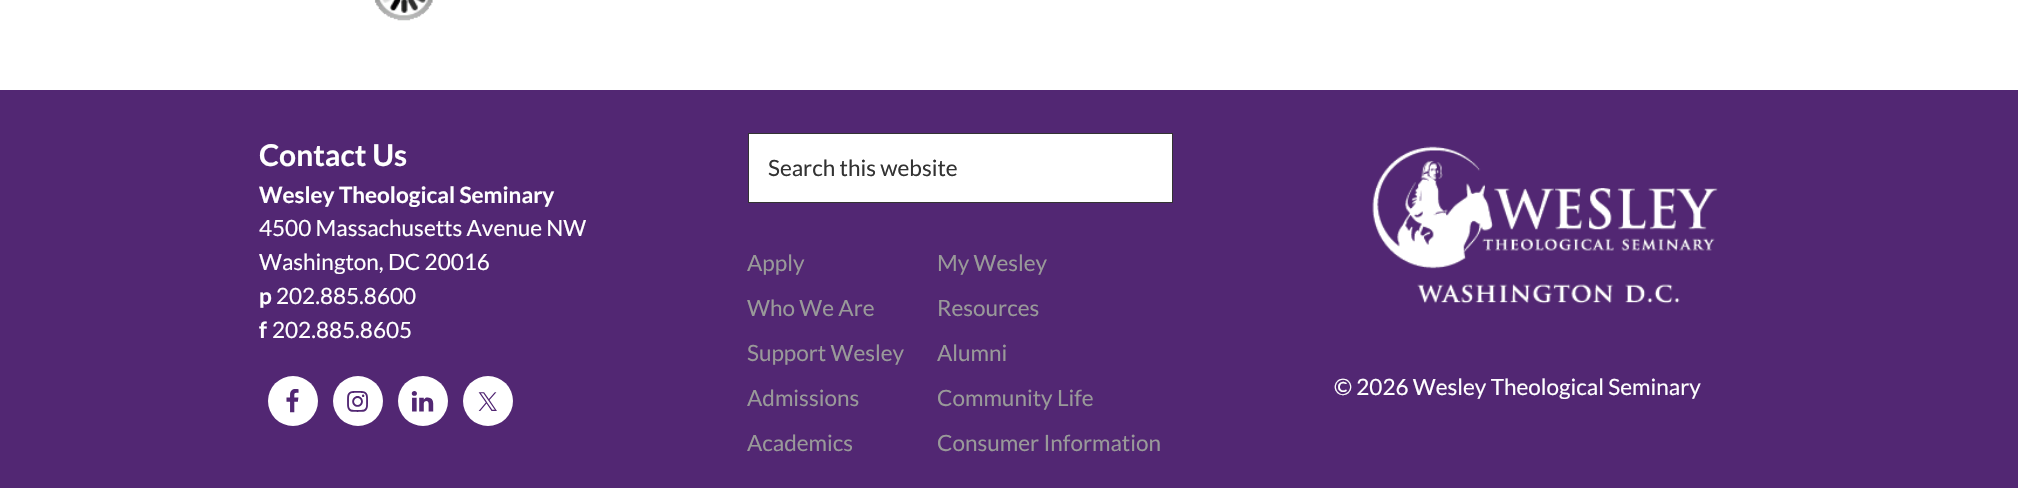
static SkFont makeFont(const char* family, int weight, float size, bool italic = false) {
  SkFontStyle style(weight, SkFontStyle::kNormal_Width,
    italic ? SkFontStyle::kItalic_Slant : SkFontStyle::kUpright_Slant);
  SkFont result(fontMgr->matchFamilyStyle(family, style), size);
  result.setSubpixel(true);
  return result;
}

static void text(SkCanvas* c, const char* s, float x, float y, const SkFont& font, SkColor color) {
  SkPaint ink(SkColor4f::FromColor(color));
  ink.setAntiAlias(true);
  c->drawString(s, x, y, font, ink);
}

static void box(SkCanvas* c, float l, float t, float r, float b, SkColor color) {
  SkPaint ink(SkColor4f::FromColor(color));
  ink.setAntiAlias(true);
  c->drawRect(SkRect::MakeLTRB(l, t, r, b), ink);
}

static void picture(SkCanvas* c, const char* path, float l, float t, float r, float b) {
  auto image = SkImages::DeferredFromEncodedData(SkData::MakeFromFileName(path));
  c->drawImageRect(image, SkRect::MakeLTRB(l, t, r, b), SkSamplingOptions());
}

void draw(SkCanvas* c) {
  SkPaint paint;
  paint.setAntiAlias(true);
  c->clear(0xffffffff);
  picture(c, "img_01.png", 374, 0, 433, 21);
  box(c, 0, 90, 2018, 488, 0xff522773);
  SkFont face1 = makeFont("Lato", 700, 30);
  text(c, "Contact Us", 259, 166, face1, 0xffffffff);
  SkFont face2 = makeFont("Lato", 700, 22.5f);
  text(c, "Wesley Theological Seminary", 259, 203, face2, 0xffffffff);
  SkFont face3 = makeFont("Lato", 400, 22.5f);
  text(c, "4500 Massachusetts Avenue NW", 259, 236, face3, 0xffffffff);
  text(c, "Washington, DC 20016", 259, 270, face3, 0xffffffff);
  text(c, "p", 259, 304, face2, 0xffffffff);
  text(c, "202.885.8600", 276, 304, face3, 0xffffffff);
  text(c, "f", 259, 338, face2, 0xffffffff);
  text(c, "202.885.8605", 272, 338, face3, 0xffffffff);
  paint.setColor(0xffffffff);
  c->drawCircle(293, 401, 25, paint);
  picture(c, "img_02.png", 286, 389, 299, 413);
  c->drawCircle(358, 401, 25, paint);
  picture(c, "img_03.png", 347, 391, 368, 412);
  c->drawCircle(423, 401, 25, paint);
  picture(c, "img_04.png", 411, 391, 434, 412);
  c->drawCircle(488, 401, 25, paint);
  picture(c, "img_05.png", 478, 392, 497, 411);
  c->drawRect(SkRect::MakeLTRB(748.5f, 133.5f, 1172.5f, 202.5f), paint);
  paint.setStyle(SkPaint::kStroke_Style);
  paint.setStrokeWidth(1);
  paint.setColor(0xff333333);
  c->drawRect(SkRect::MakeLTRB(748.5f, 133.5f, 1172.5f, 202.5f), paint);
  text(c, "Search this website", 768, 176, face3, 0xff333333);
  text(c, "Apply", 747, 271, face3, 0xff999999);
  text(c, "Who We Are", 747, 316, face3, 0xff999999);
  text(c, "Support Wesley", 747, 361, face3, 0xff999999);
  text(c, "Admissions", 747, 406, face3, 0xff999999);
  text(c, "Academics", 747, 451, face3, 0xff999999);
  text(c, "My Wesley", 937, 271, face3, 0xff999999);
  text(c, "Resources", 937, 316, face3, 0xff999999);
  text(c, "Alumni", 937, 361, face3, 0xff999999);
  text(c, "Community Life", 937, 406, face3, 0xff999999);
  text(c, "Consumer Information", 937, 451, face3, 0xff999999);
  picture(c, "img_06.png", 1372, 146, 1718, 304);
  text(c, "© 2026 Wesley Theological Seminary", 1334, 395, face3, 0xffffffff);
}
